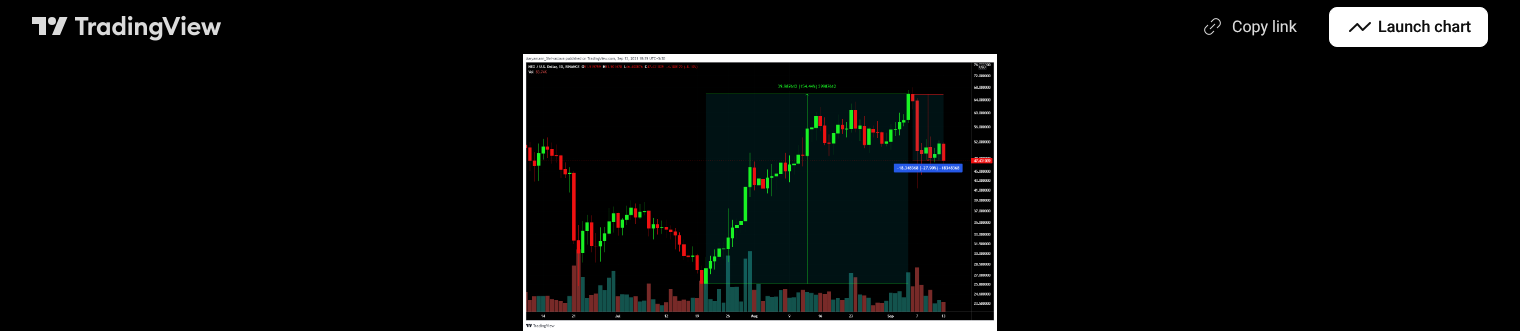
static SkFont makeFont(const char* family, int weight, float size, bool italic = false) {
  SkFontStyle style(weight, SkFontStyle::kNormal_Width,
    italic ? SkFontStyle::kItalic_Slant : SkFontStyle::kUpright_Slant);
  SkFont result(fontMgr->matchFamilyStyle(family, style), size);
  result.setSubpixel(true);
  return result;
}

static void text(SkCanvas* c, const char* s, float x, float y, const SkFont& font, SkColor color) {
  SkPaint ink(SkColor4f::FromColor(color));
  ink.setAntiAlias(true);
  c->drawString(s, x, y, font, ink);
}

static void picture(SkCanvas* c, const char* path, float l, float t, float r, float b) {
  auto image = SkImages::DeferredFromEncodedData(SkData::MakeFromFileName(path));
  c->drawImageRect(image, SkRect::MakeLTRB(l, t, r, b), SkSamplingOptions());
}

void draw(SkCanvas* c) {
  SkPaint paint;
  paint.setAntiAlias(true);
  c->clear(0xff000000);
  paint.setColor(0xffdbdbdb);
  c->drawPath(SkPathBuilder().moveTo(46, 35).lineTo(39, 35).lineTo(39, 24).lineTo(32, 24).lineTo(32, 17).lineTo(46, 17).close().moveTo(60, 35).lineTo(52, 35).lineTo(59.5f, 17).lineTo(67.5f, 17).close().detach(), paint);
  c->drawCircle(52, 21, 4, paint);
  picture(c, "img_01.png", 75, 15, 221, 41);
  picture(c, "img_02.png", 1204, 18, 1221, 35);
  SkFont face1 = makeFont("Roboto", 400, 16);
  text(c, "Copy link", 1232, 32, face1, 0xffdbdbdb);
  paint.setColor(0xffffffff);
  c->drawRoundRect(SkRect::MakeLTRB(1329.5f, 7.5f, 1487.5f, 46.5f), 7.5f, 7.5f, paint);
  paint.setStyle(SkPaint::kStroke_Style);
  paint.setStrokeWidth(1);
  c->drawRoundRect(SkRect::MakeLTRB(1329.5f, 7.5f, 1487.5f, 46.5f), 7.5f, 7.5f, paint);
  picture(c, "img_03.png", 1349, 22, 1371, 32);
  SkFont face2 = makeFont("Roboto", 500, 16);
  text(c, "Launch chart", 1378, 32, face2, 0xff0f0f0f);
  picture(c, "img_04.png", 523, 54, 997, 331);
}
